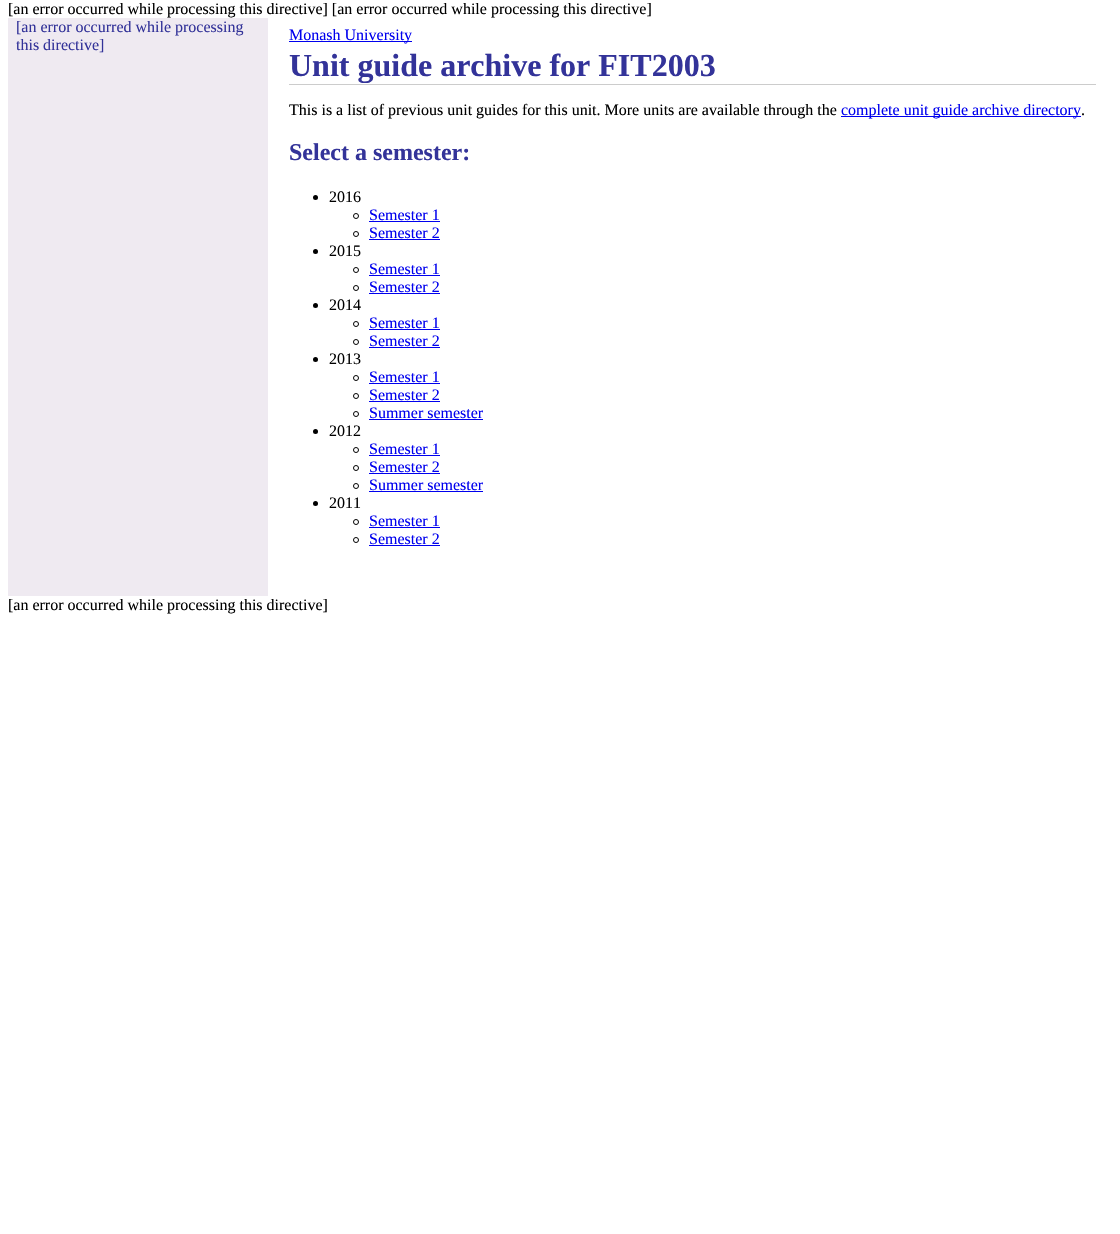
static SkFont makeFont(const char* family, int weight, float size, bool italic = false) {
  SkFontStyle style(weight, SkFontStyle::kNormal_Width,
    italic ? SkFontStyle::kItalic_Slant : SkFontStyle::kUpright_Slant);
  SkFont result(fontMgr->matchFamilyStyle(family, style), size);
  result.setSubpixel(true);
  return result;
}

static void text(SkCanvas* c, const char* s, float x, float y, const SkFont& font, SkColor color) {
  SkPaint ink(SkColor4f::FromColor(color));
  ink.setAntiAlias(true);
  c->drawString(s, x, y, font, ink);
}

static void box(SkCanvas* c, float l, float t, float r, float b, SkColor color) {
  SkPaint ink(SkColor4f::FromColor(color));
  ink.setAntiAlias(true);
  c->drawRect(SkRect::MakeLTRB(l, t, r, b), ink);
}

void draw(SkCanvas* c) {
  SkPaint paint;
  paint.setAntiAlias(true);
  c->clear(0xffffffff);
  SkFont face1 = makeFont("Liberation Serif", 400, 16);
  text(c, "[an error occurred while processing this directive] [an error occurred while processing this directive]", 8, 14, face1, 0xff000000);
  box(c, 8, 18, 268, 596, 0xffefeaf1);
  text(c, "[an error occurred while processing", 16, 32, face1, 0xff333399);
  text(c, "this directive]", 16, 50, face1, 0xff333399);
  box(c, 289, 41, 412, 42, 0xff0000ee);
  text(c, "Monash University", 289, 40, face1, 0xff0000ee);
  box(c, 289, 84, 1096, 85, 0xffcccccc);
  SkFont face2 = makeFont("Liberation Serif", 700, 32);
  text(c, "Unit guide archive for FIT2003", 289, 76, face2, 0xff333399);
  text(c, "This is a list of previous unit guides for this unit. More units are available through the", 289, 115, face1, 0xff000000);
  box(c, 841, 116, 1081, 117, 0xff0000ee);
  text(c, "complete unit guide archive directory", 841, 115, face1, 0xff0000ee);
  text(c, ".", 1081, 115, face1, 0xff000000);
  SkFont face3 = makeFont("Liberation Serif", 700, 24);
  text(c, "Select a semester:", 289, 160, face3, 0xff333399);
  paint.setColor(0xff000000);
  c->drawCircle(315.5f, 197.5f, 2.5f, paint);
  text(c, "2016", 329, 202, face1, 0xff000000);
  paint.setStyle(SkPaint::kStroke_Style);
  paint.setStrokeWidth(1);
  c->drawCircle(356, 216, 2.5f, paint);
  text(c, "Semester 1", 369, 220, face1, 0xff0000ee);
  box(c, 369, 221, 440, 222, 0xff0000ee);
  c->drawCircle(356, 234, 2.5f, paint);
  text(c, "Semester 2", 369, 238, face1, 0xff0000ee);
  box(c, 369, 239, 440, 240, 0xff0000ee);
  paint.setStyle(SkPaint::kFill_Style);
  c->drawCircle(315.5f, 251.5f, 2.5f, paint);
  text(c, "2015", 329, 256, face1, 0xff000000);
  paint.setStyle(SkPaint::kStroke_Style);
  c->drawCircle(356, 270, 2.5f, paint);
  text(c, "Semester 1", 369, 274, face1, 0xff0000ee);
  box(c, 369, 275, 440, 276, 0xff0000ee);
  c->drawCircle(356, 288, 2.5f, paint);
  text(c, "Semester 2", 369, 292, face1, 0xff0000ee);
  box(c, 369, 293, 440, 294, 0xff0000ee);
  paint.setStyle(SkPaint::kFill_Style);
  c->drawCircle(315.5f, 305.5f, 2.5f, paint);
  text(c, "2014", 329, 310, face1, 0xff000000);
  paint.setStyle(SkPaint::kStroke_Style);
  c->drawCircle(356, 324, 2.5f, paint);
  text(c, "Semester 1", 369, 328, face1, 0xff0000ee);
  box(c, 369, 329, 440, 330, 0xff0000ee);
  c->drawCircle(356, 342, 2.5f, paint);
  text(c, "Semester 2", 369, 346, face1, 0xff0000ee);
  box(c, 369, 347, 440, 348, 0xff0000ee);
  paint.setStyle(SkPaint::kFill_Style);
  c->drawCircle(315.5f, 359.5f, 2.5f, paint);
  text(c, "2013", 329, 364, face1, 0xff000000);
  paint.setStyle(SkPaint::kStroke_Style);
  c->drawCircle(356, 378, 2.5f, paint);
  text(c, "Semester 1", 369, 382, face1, 0xff0000ee);
  box(c, 369, 383, 440, 384, 0xff0000ee);
  c->drawCircle(356, 396, 2.5f, paint);
  text(c, "Semester 2", 369, 400, face1, 0xff0000ee);
  box(c, 369, 401, 440, 402, 0xff0000ee);
  c->drawCircle(356, 414, 2.5f, paint);
  text(c, "Summer semester", 369, 418, face1, 0xff0000ee);
  box(c, 369, 419, 483, 420, 0xff0000ee);
  paint.setStyle(SkPaint::kFill_Style);
  c->drawCircle(315.5f, 431.5f, 2.5f, paint);
  text(c, "2012", 329, 436, face1, 0xff000000);
  paint.setStyle(SkPaint::kStroke_Style);
  c->drawCircle(356, 450, 2.5f, paint);
  text(c, "Semester 1", 369, 454, face1, 0xff0000ee);
  box(c, 369, 455, 440, 456, 0xff0000ee);
  c->drawCircle(356, 468, 2.5f, paint);
  text(c, "Semester 2", 369, 472, face1, 0xff0000ee);
  box(c, 369, 473, 440, 474, 0xff0000ee);
  c->drawCircle(356, 486, 2.5f, paint);
  text(c, "Summer semester", 369, 490, face1, 0xff0000ee);
  box(c, 369, 491, 483, 492, 0xff0000ee);
  paint.setStyle(SkPaint::kFill_Style);
  c->drawCircle(315.5f, 503.5f, 2.5f, paint);
  text(c, "2011", 329, 508, face1, 0xff000000);
  paint.setStyle(SkPaint::kStroke_Style);
  c->drawCircle(356, 522, 2.5f, paint);
  text(c, "Semester 1", 369, 526, face1, 0xff0000ee);
  box(c, 369, 527, 440, 528, 0xff0000ee);
  c->drawCircle(356, 540, 2.5f, paint);
  text(c, "Semester 2", 369, 544, face1, 0xff0000ee);
  box(c, 369, 545, 440, 546, 0xff0000ee);
  text(c, "[an error occurred while processing this directive]", 8, 610, face1, 0xff000000);
}
